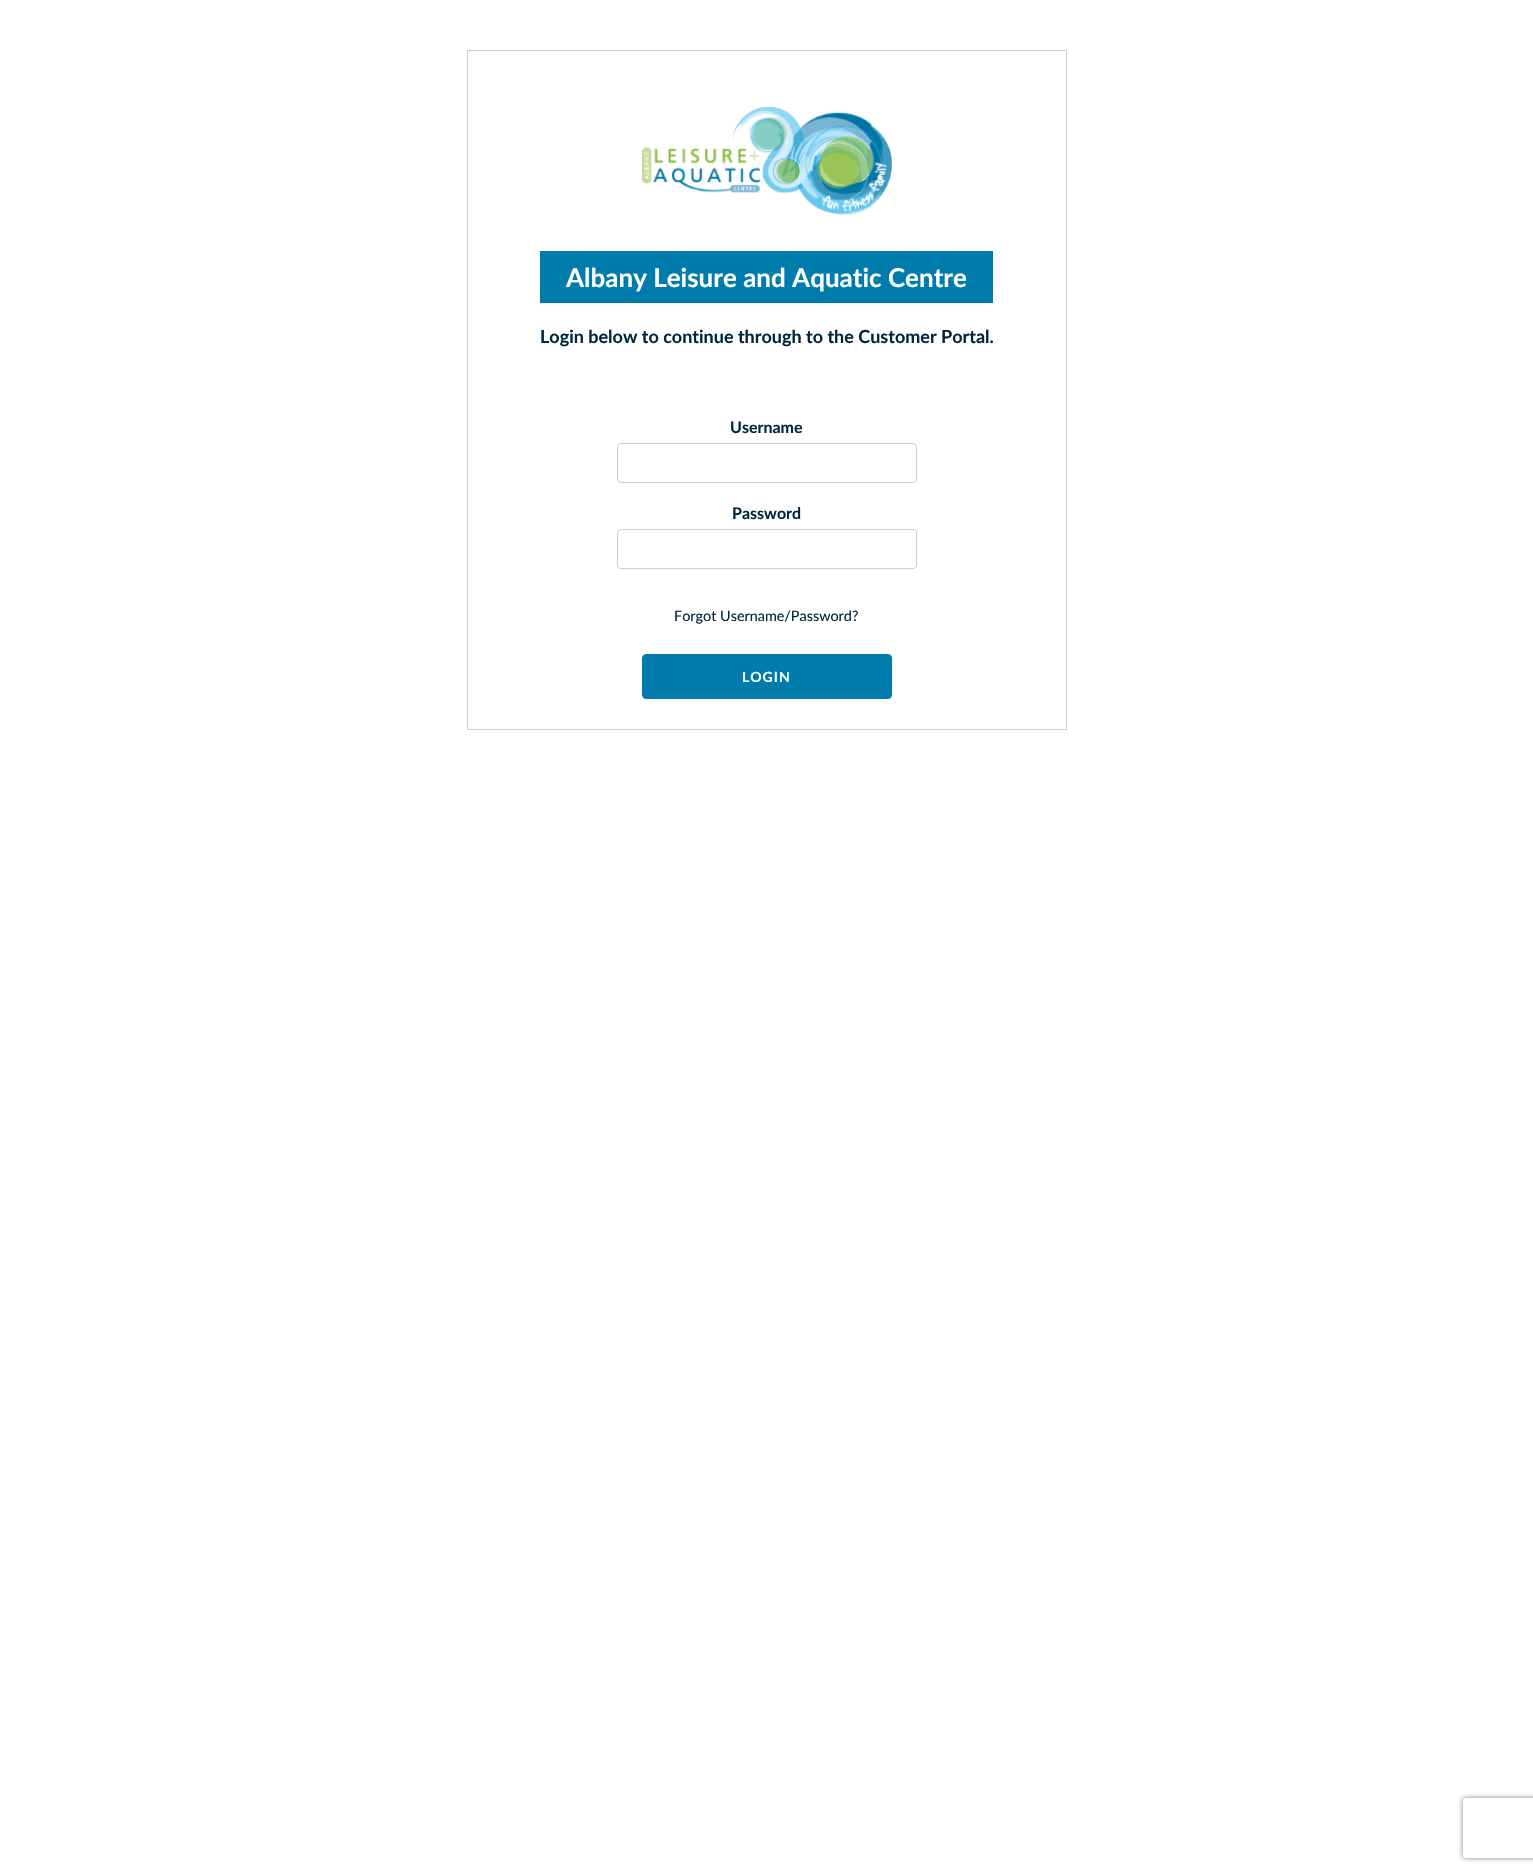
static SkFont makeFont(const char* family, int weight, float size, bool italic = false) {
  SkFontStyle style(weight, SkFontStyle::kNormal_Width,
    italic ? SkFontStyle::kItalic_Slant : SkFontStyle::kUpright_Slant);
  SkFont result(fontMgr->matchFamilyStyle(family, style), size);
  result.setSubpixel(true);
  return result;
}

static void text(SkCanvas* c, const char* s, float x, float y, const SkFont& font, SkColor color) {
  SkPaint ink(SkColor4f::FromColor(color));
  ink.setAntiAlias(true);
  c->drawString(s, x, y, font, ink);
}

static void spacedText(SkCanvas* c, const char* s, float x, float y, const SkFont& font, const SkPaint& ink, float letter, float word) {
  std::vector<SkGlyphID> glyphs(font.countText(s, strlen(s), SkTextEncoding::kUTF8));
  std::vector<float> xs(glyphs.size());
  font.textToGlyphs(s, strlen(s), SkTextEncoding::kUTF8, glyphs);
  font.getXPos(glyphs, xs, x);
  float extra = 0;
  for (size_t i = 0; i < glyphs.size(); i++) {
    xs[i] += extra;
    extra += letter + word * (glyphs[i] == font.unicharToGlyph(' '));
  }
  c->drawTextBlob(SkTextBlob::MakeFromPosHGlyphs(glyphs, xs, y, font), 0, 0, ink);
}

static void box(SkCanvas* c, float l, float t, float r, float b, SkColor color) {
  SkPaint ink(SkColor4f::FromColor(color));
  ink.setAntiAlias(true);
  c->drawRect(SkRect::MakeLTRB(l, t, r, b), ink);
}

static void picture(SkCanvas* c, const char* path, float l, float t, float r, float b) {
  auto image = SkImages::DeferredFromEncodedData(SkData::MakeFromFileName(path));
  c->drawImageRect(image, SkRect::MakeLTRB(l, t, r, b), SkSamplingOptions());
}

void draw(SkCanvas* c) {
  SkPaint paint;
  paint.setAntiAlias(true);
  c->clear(0xffffffff);
  paint.setStyle(SkPaint::kStroke_Style);
  paint.setStrokeWidth(1);
  paint.setColor(0xffcccccc);
  c->drawRect(SkRect::MakeLTRB(467.5f, 50.5f, 1066.5f, 729.5f), paint);
  picture(c, "img_01.png", 642, 107, 892, 215);
  box(c, 540, 251, 993, 303, 0xff007cac);
  SkFont face1 = makeFont("Lato", 700, 26);
  text(c, "Albany Leisure and Aquatic Centre", 566, 287, face1, 0xffffffff);
  SkFont face2 = makeFont("Lato", 700, 18);
  text(c, "Login below to continue through to the Customer Portal.", 540, 343, face2, 0xff00263e);
  SkFont face3 = makeFont("Lato", 700, 16);
  text(c, "Username", 730, 433, face3, 0xff00263e);
  c->drawRoundRect(SkRect::MakeLTRB(617.5f, 443.5f, 916.5f, 482.5f), 3.5f, 3.5f, paint);
  text(c, "Password", 732, 519, face3, 0xff00263e);
  c->drawRoundRect(SkRect::MakeLTRB(617.5f, 529.5f, 916.5f, 568.5f), 3.5f, 3.5f, paint);
  SkFont face4 = makeFont("Lato", 400, 14.4f);
  text(c, "Forgot Username/Password?", 674, 621, face4, 0xff00263e);
  paint.setStyle(SkPaint::kFill_Style);
  paint.setColor(0xff007cac);
  c->drawRoundRect(SkRect::MakeLTRB(642.5f, 654.5f, 891.5f, 698.5f), 3.5f, 3.5f, paint);
  paint.setStyle(SkPaint::kStroke_Style);
  c->drawRoundRect(SkRect::MakeLTRB(642.5f, 654.5f, 891.5f, 698.5f), 3.5f, 3.5f, paint);
  SkFont face5 = makeFont("Lato", 700, 14);
  paint.setStyle(SkPaint::kFill_Style);
  paint.setColor(0xffffffff);
  spacedText(c, "LOGIN", 742, 682, face5, paint, 1, 0);
  c->save();
  c->clipPath(SkPathBuilder(SkPathFillType::kEvenOdd).moveTo(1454, 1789).lineTo(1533, 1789).lineTo(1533, 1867).lineTo(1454, 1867).close().moveTo(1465, 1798).lineTo(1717, 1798).cubicTo(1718, 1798, 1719, 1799, 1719, 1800).lineTo(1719, 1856).cubicTo(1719, 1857, 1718, 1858, 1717, 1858).lineTo(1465, 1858).cubicTo(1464, 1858, 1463, 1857, 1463, 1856).lineTo(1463, 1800).cubicTo(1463, 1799, 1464, 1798, 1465, 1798).close().detach(), true);
  paint.setColor(0xff808080);
  paint.setMaskFilter(SkMaskFilter::MakeBlur(kNormal_SkBlurStyle, 2.5f));
  c->drawRoundRect(SkRect::MakeLTRB(1463, 1798, 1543, 1858), 2, 2, paint);
  paint.setMaskFilter(nullptr);
  c->restore();
}
